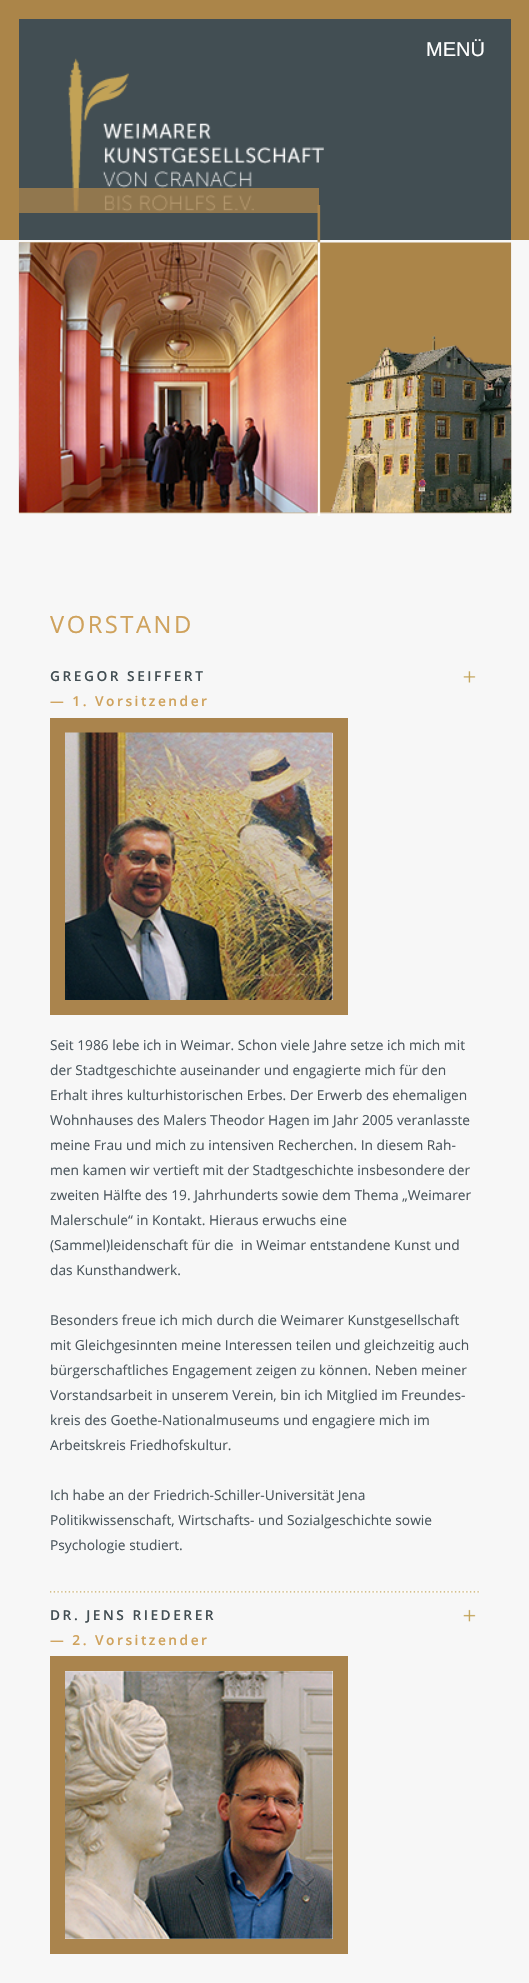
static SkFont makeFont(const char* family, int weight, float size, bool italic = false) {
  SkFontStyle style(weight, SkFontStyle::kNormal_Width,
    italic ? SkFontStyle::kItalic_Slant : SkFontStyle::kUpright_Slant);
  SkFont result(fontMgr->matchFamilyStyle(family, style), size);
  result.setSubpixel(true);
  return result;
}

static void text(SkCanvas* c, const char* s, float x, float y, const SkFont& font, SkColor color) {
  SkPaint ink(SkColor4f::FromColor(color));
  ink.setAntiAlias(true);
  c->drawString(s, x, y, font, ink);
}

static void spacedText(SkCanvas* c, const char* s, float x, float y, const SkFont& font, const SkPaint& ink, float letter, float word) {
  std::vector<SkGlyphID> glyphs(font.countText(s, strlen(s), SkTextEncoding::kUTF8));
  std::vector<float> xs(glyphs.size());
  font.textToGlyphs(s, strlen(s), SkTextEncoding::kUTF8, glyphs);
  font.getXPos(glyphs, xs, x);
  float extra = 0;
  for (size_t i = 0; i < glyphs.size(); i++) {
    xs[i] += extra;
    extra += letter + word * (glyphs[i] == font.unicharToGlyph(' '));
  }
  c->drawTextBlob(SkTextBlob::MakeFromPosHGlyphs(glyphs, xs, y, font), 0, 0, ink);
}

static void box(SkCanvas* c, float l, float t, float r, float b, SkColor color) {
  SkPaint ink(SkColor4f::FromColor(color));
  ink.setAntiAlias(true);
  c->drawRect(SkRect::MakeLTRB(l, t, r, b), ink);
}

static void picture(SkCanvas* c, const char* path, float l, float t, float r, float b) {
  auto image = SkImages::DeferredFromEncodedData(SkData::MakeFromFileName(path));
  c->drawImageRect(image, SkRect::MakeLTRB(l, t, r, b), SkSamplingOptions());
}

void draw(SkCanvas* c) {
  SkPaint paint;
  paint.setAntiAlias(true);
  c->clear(0xfff7f7f7);
  box(c, 0, 0, 529, 240, 0xffab8549);
  box(c, 19, 19, 511, 240, 0xff424e53);
  SkFont face1 = makeFont("Liberation Sans", 400, 20);
  text(c, "MENÜ", 426, 56, face1, 0xffffffff);
  picture(c, "img_01.png", 18, 205, 512, 516);
  picture(c, "img_02.png", 68, 58, 324, 212);
  box(c, 19, 188, 319, 213, 0xc2aa844c);
  picture(c, "img_03.png", 18, 242, 318, 513);
  picture(c, "img_04.png", 330, 335, 512, 513);
  SkFont face2 = makeFont("Open Sans", 400, 23.75f);
  paint.setColor(0xffcfa25c);
  spacedText(c, "VORSTAND", 50, 633, face2, paint, 2.5f, 0);
  picture(c, "img_05.png", 463, 671, 476, 683);
  SkFont face3 = makeFont("Open Sans", 600, 13.75f);
  paint.setColor(0xff424e53);
  spacedText(c, "GREGOR SEIFFERT", 50, 681, face3, paint, 2.5f, 0);
  paint.setColor(0xffcfa25c);
  spacedText(c, "— 1. Vorsitzender", 50, 706, face3, paint, 2.5f, 0);
  paint.setStyle(SkPaint::kStroke_Style);
  paint.setStrokeWidth(15);
  paint.setColor(0xffaa844d);
  c->drawRect(SkRect::MakeLTRB(57.5f, 725.5f, 340.5f, 1007.5f), paint);
  picture(c, "img_06.png", 65, 732, 333, 1000);
  SkFont face4 = makeFont("Open Sans", 400, 13.75f);
  text(c, "Seit 1986 lebe ich in Weimar. Schon viele Jahre setze ich mich mit", 50, 1050, face4, 0xff4b565d);
  text(c, "der Stadtgeschichte auseinander und engagierte mich für den", 50, 1075, face4, 0xff4b565d);
  text(c, "Erhalt ihres kulturhistorischen Erbes. Der Erwerb des ehemaligen", 50, 1100, face4, 0xff4b565d);
  text(c, "Wohnhauses des Malers Theodor Hagen im Jahr 2005 veranlasste", 50, 1125, face4, 0xff4b565d);
  text(c, "meine Frau und mich zu intensiven Recherchen. In diesem Rah-", 50, 1150, face4, 0xff4b565d);
  text(c, "men kamen wir vertieft mit der Stadtgeschichte insbesondere der", 50, 1175, face4, 0xff4b565d);
  text(c, "zweiten Hälfte des 19. Jahrhunderts sowie dem Thema „Weimarer", 50, 1200, face4, 0xff4b565d);
  text(c, "Malerschule“ in Kontakt. Hieraus erwuchs eine", 50, 1225, face4, 0xff4b565d);
  text(c, "(Sammel)leidenschaft für die  in Weimar entstandene Kunst und", 50, 1250, face4, 0xff4b565d);
  text(c, "das Kunsthandwerk.", 50, 1275, face4, 0xff4b565d);
  text(c, "Besonders freue ich mich durch die Weimarer Kunstgesellschaft", 50, 1325, face4, 0xff4b565d);
  text(c, "mit Gleichgesinnten meine Interessen teilen und gleichzeitig auch", 50, 1350, face4, 0xff4b565d);
  text(c, "bürgerschaftliches Engagement zeigen zu können. Neben meiner", 50, 1375, face4, 0xff4b565d);
  text(c, "Vorstandsarbeit in unserem Verein, bin ich Mitglied im Freundes-", 50, 1400, face4, 0xff4b565d);
  text(c, "kreis des Goethe-Nationalmuseums und engagiere mich im", 50, 1425, face4, 0xff4b565d);
  text(c, "Arbeitskreis Friedhofskultur.", 50, 1450, face4, 0xff4b565d);
  text(c, "Ich habe an der Friedrich-Schiller-Universität Jena", 50, 1500, face4, 0xff4b565d);
  text(c, "Politikwissenschaft, Wirtschafts- und Sozialgeschichte sowie", 50, 1525, face4, 0xff4b565d);
  text(c, "Psychologie studiert.", 50, 1550, face4, 0xff4b565d);
  picture(c, "img_07.png", 50, 1591, 480, 1593);
  picture(c, "img_08.png", 463, 1609, 476, 1622);
  paint.setStyle(SkPaint::kFill_Style);
  paint.setColor(0xff424e53);
  spacedText(c, "DR. JENS RIEDERER", 50, 1620, face3, paint, 2.5f, 0);
  paint.setColor(0xffcfa25c);
  spacedText(c, "— 2. Vorsitzender", 50, 1645, face3, paint, 2.5f, 0);
  paint.setStyle(SkPaint::kStroke_Style);
  paint.setColor(0xffaa844d);
  c->drawRect(SkRect::MakeLTRB(57.5f, 1663.5f, 340.5f, 1946.5f), paint);
  picture(c, "img_09.png", 65, 1671, 333, 1939);
}
